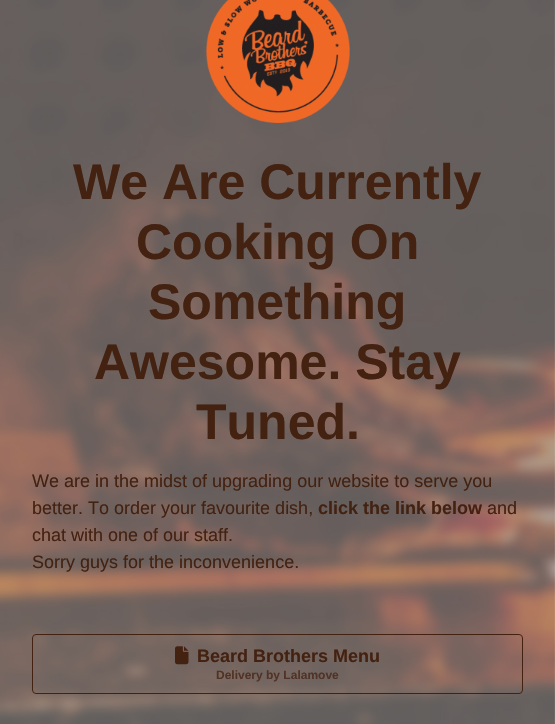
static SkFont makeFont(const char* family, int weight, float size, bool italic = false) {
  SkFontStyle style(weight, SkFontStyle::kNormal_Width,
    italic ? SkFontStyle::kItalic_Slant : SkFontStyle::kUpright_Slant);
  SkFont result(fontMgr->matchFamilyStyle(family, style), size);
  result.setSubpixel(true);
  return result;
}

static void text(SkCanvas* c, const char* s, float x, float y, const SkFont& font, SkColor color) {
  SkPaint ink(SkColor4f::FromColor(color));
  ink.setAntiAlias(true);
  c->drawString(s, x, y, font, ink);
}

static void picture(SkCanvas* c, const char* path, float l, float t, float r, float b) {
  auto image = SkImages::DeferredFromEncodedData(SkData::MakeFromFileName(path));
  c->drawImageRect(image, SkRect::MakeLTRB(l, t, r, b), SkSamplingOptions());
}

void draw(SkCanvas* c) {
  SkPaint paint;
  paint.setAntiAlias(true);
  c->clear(0xffffffff);
  picture(c, "img_01.png", 0, 0, 555, 724);
  picture(c, "img_02.png", 206, 0, 350, 123);
  SkFont face1 = makeFont("Liberation Sans", 700, 50);
  text(c, "We Are Currently", 73, 199, face1, 0xff442211);
  text(c, "Cooking On", 136, 259, face1, 0xff442211);
  text(c, "Something", 148, 319, face1, 0xff442211);
  text(c, "Awesome. Stay", 94, 379, face1, 0xff442211);
  text(c, "Tuned.", 196, 439, face1, 0xff442211);
  SkFont face2 = makeFont("Liberation Sans", 400, 18);
  text(c, "We are in the midst of upgrading our website to serve you", 32, 487, face2, 0xff442211);
  text(c, "better. To order your favourite dish,", 32, 514, face2, 0xff442211);
  SkFont face3 = makeFont("Liberation Sans", 700, 18);
  text(c, "click the link below", 318, 514, face3, 0xff442211);
  text(c, "and", 487, 514, face2, 0xff442211);
  text(c, "chat with one of our staff.", 32, 541, face2, 0xff442211);
  text(c, "Sorry guys for the inconvenience.", 32, 568, face2, 0xff442211);
  paint.setStyle(SkPaint::kStroke_Style);
  paint.setStrokeWidth(1);
  paint.setColor(0xff442211);
  c->drawRoundRect(SkRect::MakeLTRB(32.5f, 634.5f, 522.5f, 693.5f), 3.5f, 3.5f, paint);
  picture(c, "img_03.png", 175, 646, 189, 665);
  text(c, "Beard Brothers Menu", 197, 662, face3, 0xff442211);
  SkFont face4 = makeFont("Liberation Sans", 700, 12);
  text(c, "Delivery by Lalamove", 216, 679, face4, 0xff503325);
}
